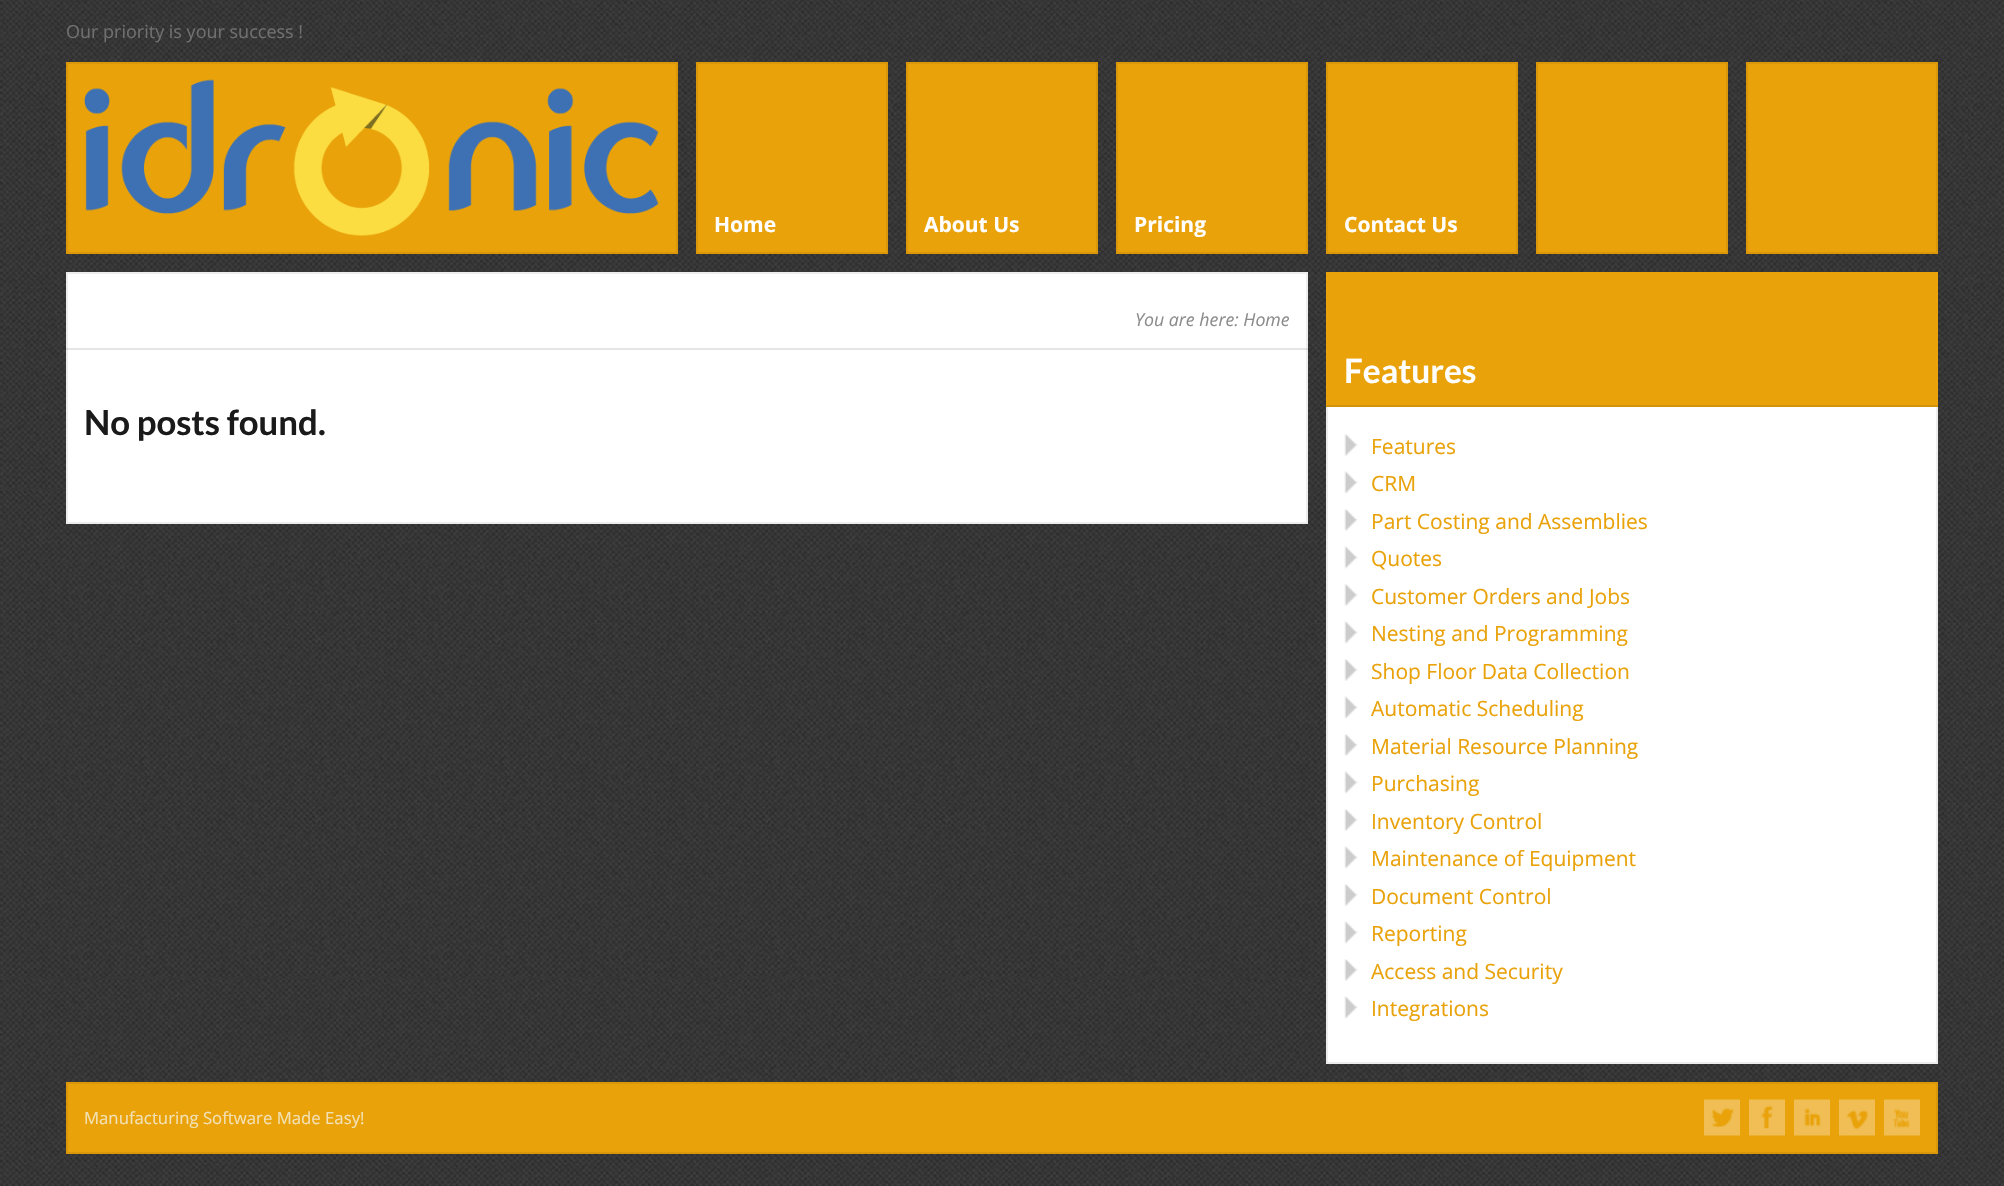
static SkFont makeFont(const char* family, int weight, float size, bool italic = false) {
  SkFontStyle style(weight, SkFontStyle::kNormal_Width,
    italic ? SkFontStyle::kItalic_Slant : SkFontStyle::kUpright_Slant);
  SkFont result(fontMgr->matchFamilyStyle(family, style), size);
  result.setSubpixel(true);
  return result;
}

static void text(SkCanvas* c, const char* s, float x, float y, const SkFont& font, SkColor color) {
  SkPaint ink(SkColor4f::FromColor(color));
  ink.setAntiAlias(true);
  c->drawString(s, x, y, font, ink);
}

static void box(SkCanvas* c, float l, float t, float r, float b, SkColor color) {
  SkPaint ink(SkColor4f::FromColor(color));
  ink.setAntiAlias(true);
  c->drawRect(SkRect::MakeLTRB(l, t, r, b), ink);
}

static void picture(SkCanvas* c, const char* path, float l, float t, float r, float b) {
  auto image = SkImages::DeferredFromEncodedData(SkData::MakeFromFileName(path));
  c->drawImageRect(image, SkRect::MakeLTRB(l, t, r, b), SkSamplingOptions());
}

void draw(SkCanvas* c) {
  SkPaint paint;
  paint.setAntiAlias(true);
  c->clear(0xffffffff);
  picture(c, "img_01.png", 0, 0, 2004, 1186);
  SkFont face1 = makeFont("Open Sans", 400, 18);
  text(c, "Our priority is your success !", 66, 38, face1, 0xff707070);
  paint.setColor(0xffe9a20a);
  c->drawRect(SkRect::MakeLTRB(67, 63, 677, 253), paint);
  paint.setStyle(SkPaint::kStroke_Style);
  paint.setStrokeWidth(2);
  paint.setColor(0xffd99709);
  c->drawRect(SkRect::MakeLTRB(67, 63, 677, 253), paint);
  picture(c, "img_02.png", 84, 79, 659, 236);
  paint.setStyle(SkPaint::kFill_Style);
  paint.setColor(0xffe9a20a);
  c->drawRect(SkRect::MakeLTRB(697, 63, 887, 253), paint);
  paint.setStyle(SkPaint::kStroke_Style);
  paint.setColor(0xffd99709);
  c->drawRect(SkRect::MakeLTRB(697, 63, 887, 253), paint);
  SkFont face2 = makeFont("Open Sans", 700, 21);
  text(c, "Home", 714, 232, face2, 0xffffffff);
  paint.setStyle(SkPaint::kFill_Style);
  paint.setColor(0xffe9a20a);
  c->drawRect(SkRect::MakeLTRB(907, 63, 1097, 253), paint);
  paint.setStyle(SkPaint::kStroke_Style);
  paint.setColor(0xffd99709);
  c->drawRect(SkRect::MakeLTRB(907, 63, 1097, 253), paint);
  text(c, "About Us", 924, 232, face2, 0xffffffff);
  paint.setStyle(SkPaint::kFill_Style);
  paint.setColor(0xffe9a20a);
  c->drawRect(SkRect::MakeLTRB(1117, 63, 1307, 253), paint);
  paint.setStyle(SkPaint::kStroke_Style);
  paint.setColor(0xffd99709);
  c->drawRect(SkRect::MakeLTRB(1117, 63, 1307, 253), paint);
  text(c, "Pricing", 1134, 232, face2, 0xffffffff);
  paint.setStyle(SkPaint::kFill_Style);
  paint.setColor(0xffe9a20a);
  c->drawRect(SkRect::MakeLTRB(1327, 63, 1517, 253), paint);
  paint.setStyle(SkPaint::kStroke_Style);
  paint.setColor(0xffd99709);
  c->drawRect(SkRect::MakeLTRB(1327, 63, 1517, 253), paint);
  text(c, "Contact Us", 1344, 232, face2, 0xffffffff);
  paint.setStyle(SkPaint::kFill_Style);
  paint.setColor(0xffe9a20a);
  c->drawRect(SkRect::MakeLTRB(1537, 63, 1727, 253), paint);
  paint.setStyle(SkPaint::kStroke_Style);
  paint.setColor(0xffd99709);
  c->drawRect(SkRect::MakeLTRB(1537, 63, 1727, 253), paint);
  paint.setStyle(SkPaint::kFill_Style);
  paint.setColor(0xffe9a20a);
  c->drawRect(SkRect::MakeLTRB(1747, 63, 1937, 253), paint);
  paint.setStyle(SkPaint::kStroke_Style);
  paint.setColor(0xffd99709);
  c->drawRect(SkRect::MakeLTRB(1747, 63, 1937, 253), paint);
  paint.setStyle(SkPaint::kFill_Style);
  paint.setColor(0xffffffff);
  c->drawRect(SkRect::MakeLTRB(67, 273, 1307, 523), paint);
  paint.setStyle(SkPaint::kStroke_Style);
  paint.setColor(0xffededed);
  c->drawRect(SkRect::MakeLTRB(67, 273, 1307, 523), paint);
  SkFont face3 = makeFont("Open Sans", 400, 17.75f, true);
  text(c, "You are here: Home", 1135, 326, face3, 0xff8c8c8c);
  box(c, 66, 348, 1308, 350, 0x1a000000);
  SkFont face4 = makeFont("Lato", 700, 34.75f);
  text(c, "No posts found.", 84, 435, face4, 0xff1a1a1a);
  box(c, 1328, 407, 1936, 1062, 0xffffffff);
  c->drawRect(SkRect::MakeLTRB(1327, 273, 1937, 1063), paint);
  box(c, 1326, 272, 1938, 405, 0xffe9a20a);
  box(c, 1326, 405, 1938, 407, 0xffd29209);
  SkFont face5 = makeFont("Lato", 700, 33.5f);
  text(c, "Features", 1344, 383, face5, 0xffffffff);
  picture(c, "img_03.png", 1344, 434, 1358, 456);
  SkFont face6 = makeFont("Open Sans", 400, 21);
  text(c, "Features", 1371, 454, face6, 0xffe9a20a);
  picture(c, "img_04.png", 1344, 471, 1358, 494);
  text(c, "CRM", 1371, 491, face6, 0xffe9a20a);
  picture(c, "img_03.png", 1344, 509, 1358, 531);
  text(c, "Part Costing and Assemblies", 1371, 529, face6, 0xffe9a20a);
  picture(c, "img_04.png", 1344, 546, 1358, 569);
  text(c, "Quotes", 1371, 566, face6, 0xffe9a20a);
  picture(c, "img_03.png", 1344, 584, 1358, 606);
  text(c, "Customer Orders and Jobs", 1371, 604, face6, 0xffe9a20a);
  picture(c, "img_04.png", 1344, 621, 1358, 644);
  text(c, "Nesting and Programming", 1371, 641, face6, 0xffe9a20a);
  picture(c, "img_03.png", 1344, 659, 1358, 681);
  text(c, "Shop Floor Data Collection", 1371, 679, face6, 0xffe9a20a);
  picture(c, "img_04.png", 1344, 696, 1358, 719);
  text(c, "Automatic Scheduling", 1371, 716, face6, 0xffe9a20a);
  picture(c, "img_03.png", 1344, 734, 1358, 756);
  text(c, "Material Resource Planning", 1371, 754, face6, 0xffe9a20a);
  picture(c, "img_04.png", 1344, 771, 1358, 794);
  text(c, "Purchasing", 1371, 791, face6, 0xffe9a20a);
  picture(c, "img_03.png", 1344, 809, 1358, 831);
  text(c, "Inventory Control", 1371, 829, face6, 0xffe9a20a);
  picture(c, "img_04.png", 1344, 846, 1358, 869);
  text(c, "Maintenance of Equipment", 1371, 866, face6, 0xffe9a20a);
  picture(c, "img_03.png", 1344, 884, 1358, 906);
  text(c, "Document Control", 1371, 904, face6, 0xffe9a20a);
  picture(c, "img_04.png", 1344, 921, 1358, 944);
  text(c, "Reporting", 1371, 941, face6, 0xffe9a20a);
  picture(c, "img_03.png", 1344, 959, 1358, 981);
  text(c, "Access and Security", 1371, 979, face6, 0xffe9a20a);
  picture(c, "img_04.png", 1344, 996, 1358, 1019);
  text(c, "Integrations", 1371, 1016, face6, 0xffe9a20a);
  paint.setStyle(SkPaint::kFill_Style);
  paint.setColor(0xffe9a20a);
  c->drawRect(SkRect::MakeLTRB(67, 1083, 1937, 1153), paint);
  paint.setStyle(SkPaint::kStroke_Style);
  paint.setColor(0xffd99709);
  c->drawRect(SkRect::MakeLTRB(67, 1083, 1937, 1153), paint);
  SkFont face7 = makeFont("Open Sans", 400, 16.75f);
  text(c, "Manufacturing Software Made Easy!", 84, 1124, face7, 0xfff2e1b4);
  picture(c, "img_05.png", 1704, 1099, 1740, 1136);
  picture(c, "img_06.png", 1749, 1099, 1785, 1136);
  picture(c, "img_07.png", 1794, 1099, 1830, 1136);
  picture(c, "img_08.png", 1839, 1099, 1875, 1136);
  picture(c, "img_09.png", 1884, 1099, 1920, 1136);
}
